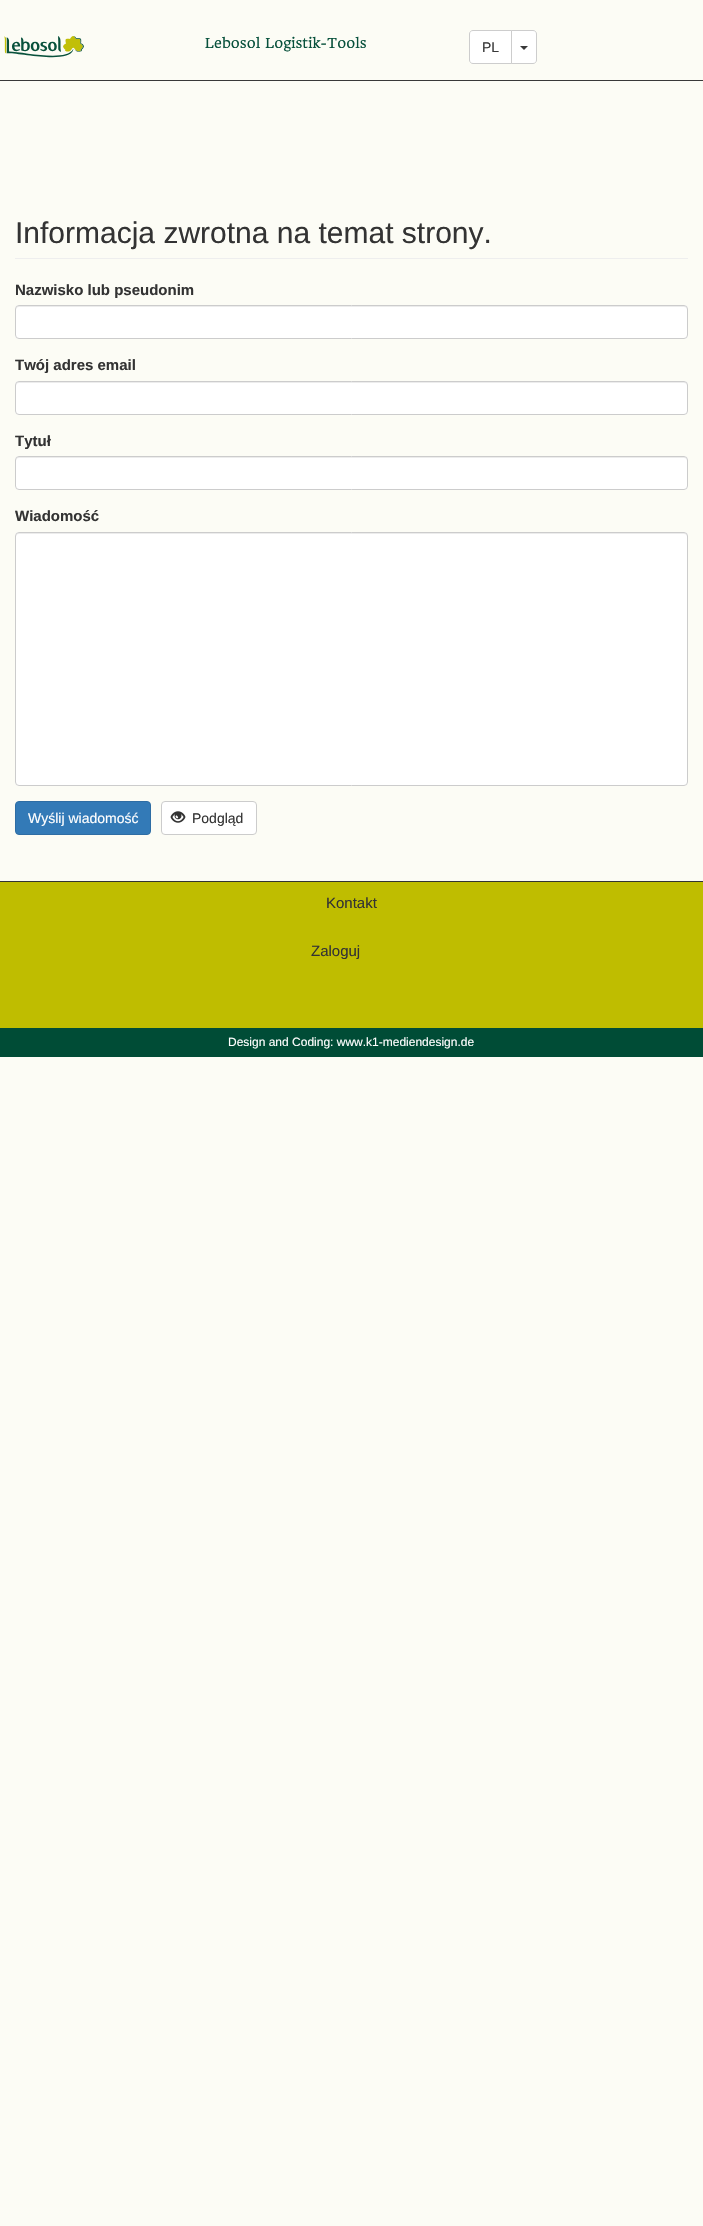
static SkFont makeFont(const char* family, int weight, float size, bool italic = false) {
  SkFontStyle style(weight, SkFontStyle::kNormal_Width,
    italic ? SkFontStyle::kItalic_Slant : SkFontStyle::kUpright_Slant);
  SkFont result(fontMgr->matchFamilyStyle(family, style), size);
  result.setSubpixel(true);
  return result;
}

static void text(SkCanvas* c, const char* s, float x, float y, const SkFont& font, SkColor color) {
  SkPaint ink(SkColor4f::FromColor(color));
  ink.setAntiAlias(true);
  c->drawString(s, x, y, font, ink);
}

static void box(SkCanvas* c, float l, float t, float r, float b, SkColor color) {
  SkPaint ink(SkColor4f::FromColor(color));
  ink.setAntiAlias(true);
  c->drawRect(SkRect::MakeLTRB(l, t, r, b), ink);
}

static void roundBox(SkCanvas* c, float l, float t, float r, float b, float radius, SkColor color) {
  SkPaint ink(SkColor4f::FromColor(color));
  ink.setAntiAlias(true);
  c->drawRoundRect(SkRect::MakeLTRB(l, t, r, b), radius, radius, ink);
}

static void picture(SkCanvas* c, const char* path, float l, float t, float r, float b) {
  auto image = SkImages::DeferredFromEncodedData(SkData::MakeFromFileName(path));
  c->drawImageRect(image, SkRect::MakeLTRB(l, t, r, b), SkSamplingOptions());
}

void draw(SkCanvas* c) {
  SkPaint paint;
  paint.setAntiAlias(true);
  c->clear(0xfffcfcf5);
  box(c, 0, 80, 703, 81, 0xff393939);
  picture(c, "img_01.png", 4, 36, 84, 58);
  SkFont face1 = makeFont("HeadlandOne", 400, 13.5f);
  text(c, "Lebosol Logistik-Tools", 205, 48, face1, 0xff08513c);
  paint.setColor(0xffffffff);
  c->drawPath(SkPathBuilder().moveTo(473, 30.5f).lineTo(511.5f, 30.5f).lineTo(511.5f, 63.5f).lineTo(473, 63.5f).cubicTo(471, 63.5f, 469.5f, 62, 469.5f, 60).lineTo(469.5f, 34).cubicTo(469.5f, 32, 471, 30.5f, 473, 30.5f).close().detach(), paint);
  paint.setStyle(SkPaint::kStroke_Style);
  paint.setStrokeWidth(1);
  paint.setColor(0xffcdcdcd);
  c->drawPath(SkPathBuilder().moveTo(473, 30.5f).lineTo(511.5f, 30.5f).lineTo(511.5f, 63.5f).lineTo(473, 63.5f).cubicTo(471, 63.5f, 469.5f, 62, 469.5f, 60).lineTo(469.5f, 34).cubicTo(469.5f, 32, 471, 30.5f, 473, 30.5f).close().detach(), paint);
  SkFont face2 = makeFont("Liberation Sans", 400, 14);
  text(c, "PL", 482, 52, face2, 0xff393939);
  paint.setStyle(SkPaint::kFill_Style);
  paint.setColor(0xffffffff);
  c->drawPath(SkPathBuilder().moveTo(511.5f, 30.5f).lineTo(533, 30.5f).cubicTo(535, 30.5f, 536.5f, 32, 536.5f, 34).lineTo(536.5f, 60).cubicTo(536.5f, 62, 535, 63.5f, 533, 63.5f).lineTo(511.5f, 63.5f).close().detach(), paint);
  paint.setStyle(SkPaint::kStroke_Style);
  paint.setColor(0xffcdcdcd);
  c->drawPath(SkPathBuilder().moveTo(511.5f, 30.5f).lineTo(533, 30.5f).cubicTo(535, 30.5f, 536.5f, 32, 536.5f, 34).lineTo(536.5f, 60).cubicTo(536.5f, 62, 535, 63.5f, 533, 63.5f).lineTo(511.5f, 63.5f).close().detach(), paint);
  paint.setStyle(SkPaint::kFill_Style);
  paint.setColor(0xff393939);
  c->drawPath(SkPathBuilder().moveTo(520, 46).lineTo(528, 46).lineTo(524, 50).close().detach(), paint);
  box(c, 15, 258, 688, 259, 0xffeeeeee);
  SkFont face3 = makeFont("Liberation Sans", 400, 30);
  text(c, "Informacja zwrotna na temat strony.", 15, 243, face3, 0xff333333);
  SkFont face4 = makeFont("Liberation Sans", 700, 15);
  text(c, "Nazwisko lub pseudonim", 15, 295, face4, 0xff333333);
  roundBox(c, 15, 305, 688, 339, 4, 0xffffffff);
  paint.setColor(0xffececec);
  c->drawPath(SkPathBuilder().moveTo(19, 307).lineTo(684, 307).cubicTo(686, 307, 687, 308, 687, 310).lineTo(687, 309).cubicTo(687, 307, 686, 306, 684, 306).lineTo(19, 306).cubicTo(17, 306, 16, 307, 16, 309).lineTo(16, 310).cubicTo(16, 308, 17, 307, 19, 307).close().detach(), paint);
  paint.setStyle(SkPaint::kStroke_Style);
  paint.setColor(0xffcccccc);
  c->drawRoundRect(SkRect::MakeLTRB(15.5f, 305.5f, 687.5f, 338.5f), 3.5f, 3.5f, paint);
  text(c, "Twój adres email", 15, 370, face4, 0xff333333);
  roundBox(c, 15, 381, 688, 415, 4, 0xffffffff);
  paint.setStyle(SkPaint::kFill_Style);
  paint.setColor(0xffececec);
  c->drawPath(SkPathBuilder().moveTo(19, 383).lineTo(684, 383).cubicTo(686, 383, 687, 384, 687, 386).lineTo(687, 385).cubicTo(687, 383, 686, 382, 684, 382).lineTo(19, 382).cubicTo(17, 382, 16, 383, 16, 385).lineTo(16, 386).cubicTo(16, 384, 17, 383, 19, 383).close().detach(), paint);
  paint.setStyle(SkPaint::kStroke_Style);
  paint.setColor(0xffcccccc);
  c->drawRoundRect(SkRect::MakeLTRB(15.5f, 381.5f, 687.5f, 414.5f), 3.5f, 3.5f, paint);
  text(c, "Tytuł", 15, 446, face4, 0xff333333);
  roundBox(c, 15, 456, 688, 490, 4, 0xffffffff);
  paint.setStyle(SkPaint::kFill_Style);
  paint.setColor(0xffececec);
  c->drawPath(SkPathBuilder().moveTo(19, 458).lineTo(684, 458).cubicTo(686, 458, 687, 459, 687, 461).lineTo(687, 460).cubicTo(687, 458, 686, 457, 684, 457).lineTo(19, 457).cubicTo(17, 457, 16, 458, 16, 460).lineTo(16, 461).cubicTo(16, 459, 17, 458, 19, 458).close().detach(), paint);
  paint.setStyle(SkPaint::kStroke_Style);
  paint.setColor(0xffcccccc);
  c->drawRoundRect(SkRect::MakeLTRB(15.5f, 456.5f, 687.5f, 489.5f), 3.5f, 3.5f, paint);
  text(c, "Wiadomość", 15, 521, face4, 0xff333333);
  roundBox(c, 15, 532, 688, 786, 4, 0xffffffff);
  paint.setStyle(SkPaint::kFill_Style);
  paint.setColor(0xffececec);
  c->drawPath(SkPathBuilder().moveTo(19, 534).lineTo(684, 534).cubicTo(686, 534, 687, 535, 687, 537).lineTo(687, 536).cubicTo(687, 534, 686, 533, 684, 533).lineTo(19, 533).cubicTo(17, 533, 16, 534, 16, 536).lineTo(16, 537).cubicTo(16, 535, 17, 534, 19, 534).close().detach(), paint);
  paint.setStyle(SkPaint::kStroke_Style);
  paint.setColor(0xffcccccc);
  c->drawRoundRect(SkRect::MakeLTRB(15.5f, 532.5f, 687.5f, 785.5f), 3.5f, 3.5f, paint);
  paint.setStyle(SkPaint::kFill_Style);
  paint.setColor(0xff337ab7);
  c->drawRoundRect(SkRect::MakeLTRB(15.5f, 801.5f, 150.5f, 834.5f), 3.5f, 3.5f, paint);
  paint.setStyle(SkPaint::kStroke_Style);
  paint.setColor(0xff2e6da4);
  c->drawRoundRect(SkRect::MakeLTRB(15.5f, 801.5f, 150.5f, 834.5f), 3.5f, 3.5f, paint);
  text(c, "Wyślij wiadomość", 28, 823, face2, 0xffffffff);
  paint.setStyle(SkPaint::kFill_Style);
  paint.setColor(0xffffffff);
  c->drawRoundRect(SkRect::MakeLTRB(161.5f, 801.5f, 256.5f, 834.5f), 3.5f, 3.5f, paint);
  paint.setStyle(SkPaint::kStroke_Style);
  paint.setColor(0xffcccccc);
  c->drawRoundRect(SkRect::MakeLTRB(161.5f, 801.5f, 256.5f, 834.5f), 3.5f, 3.5f, paint);
  picture(c, "img_02.png", 170, 811, 186, 823);
  text(c, "Podgląd", 192, 823, face2, 0xff333333);
  box(c, 0, 882, 703, 1028, 0xffbfbd00);
  box(c, 0, 881, 703, 882, 0xff333333);
  SkFont face5 = makeFont("Liberation Sans", 400, 15);
  text(c, "Kontakt", 326, 908, face5, 0xff333333);
  text(c, "Zaloguj", 311, 956, face5, 0xff333333);
  box(c, 0, 1028, 703, 1057, 0xff004c36);
  SkFont face6 = makeFont("Liberation Sans", 400, 12);
  text(c, "Design and Coding: www.k1-mediendesign.de", 228, 1046, face6, 0xffffffff);
}
